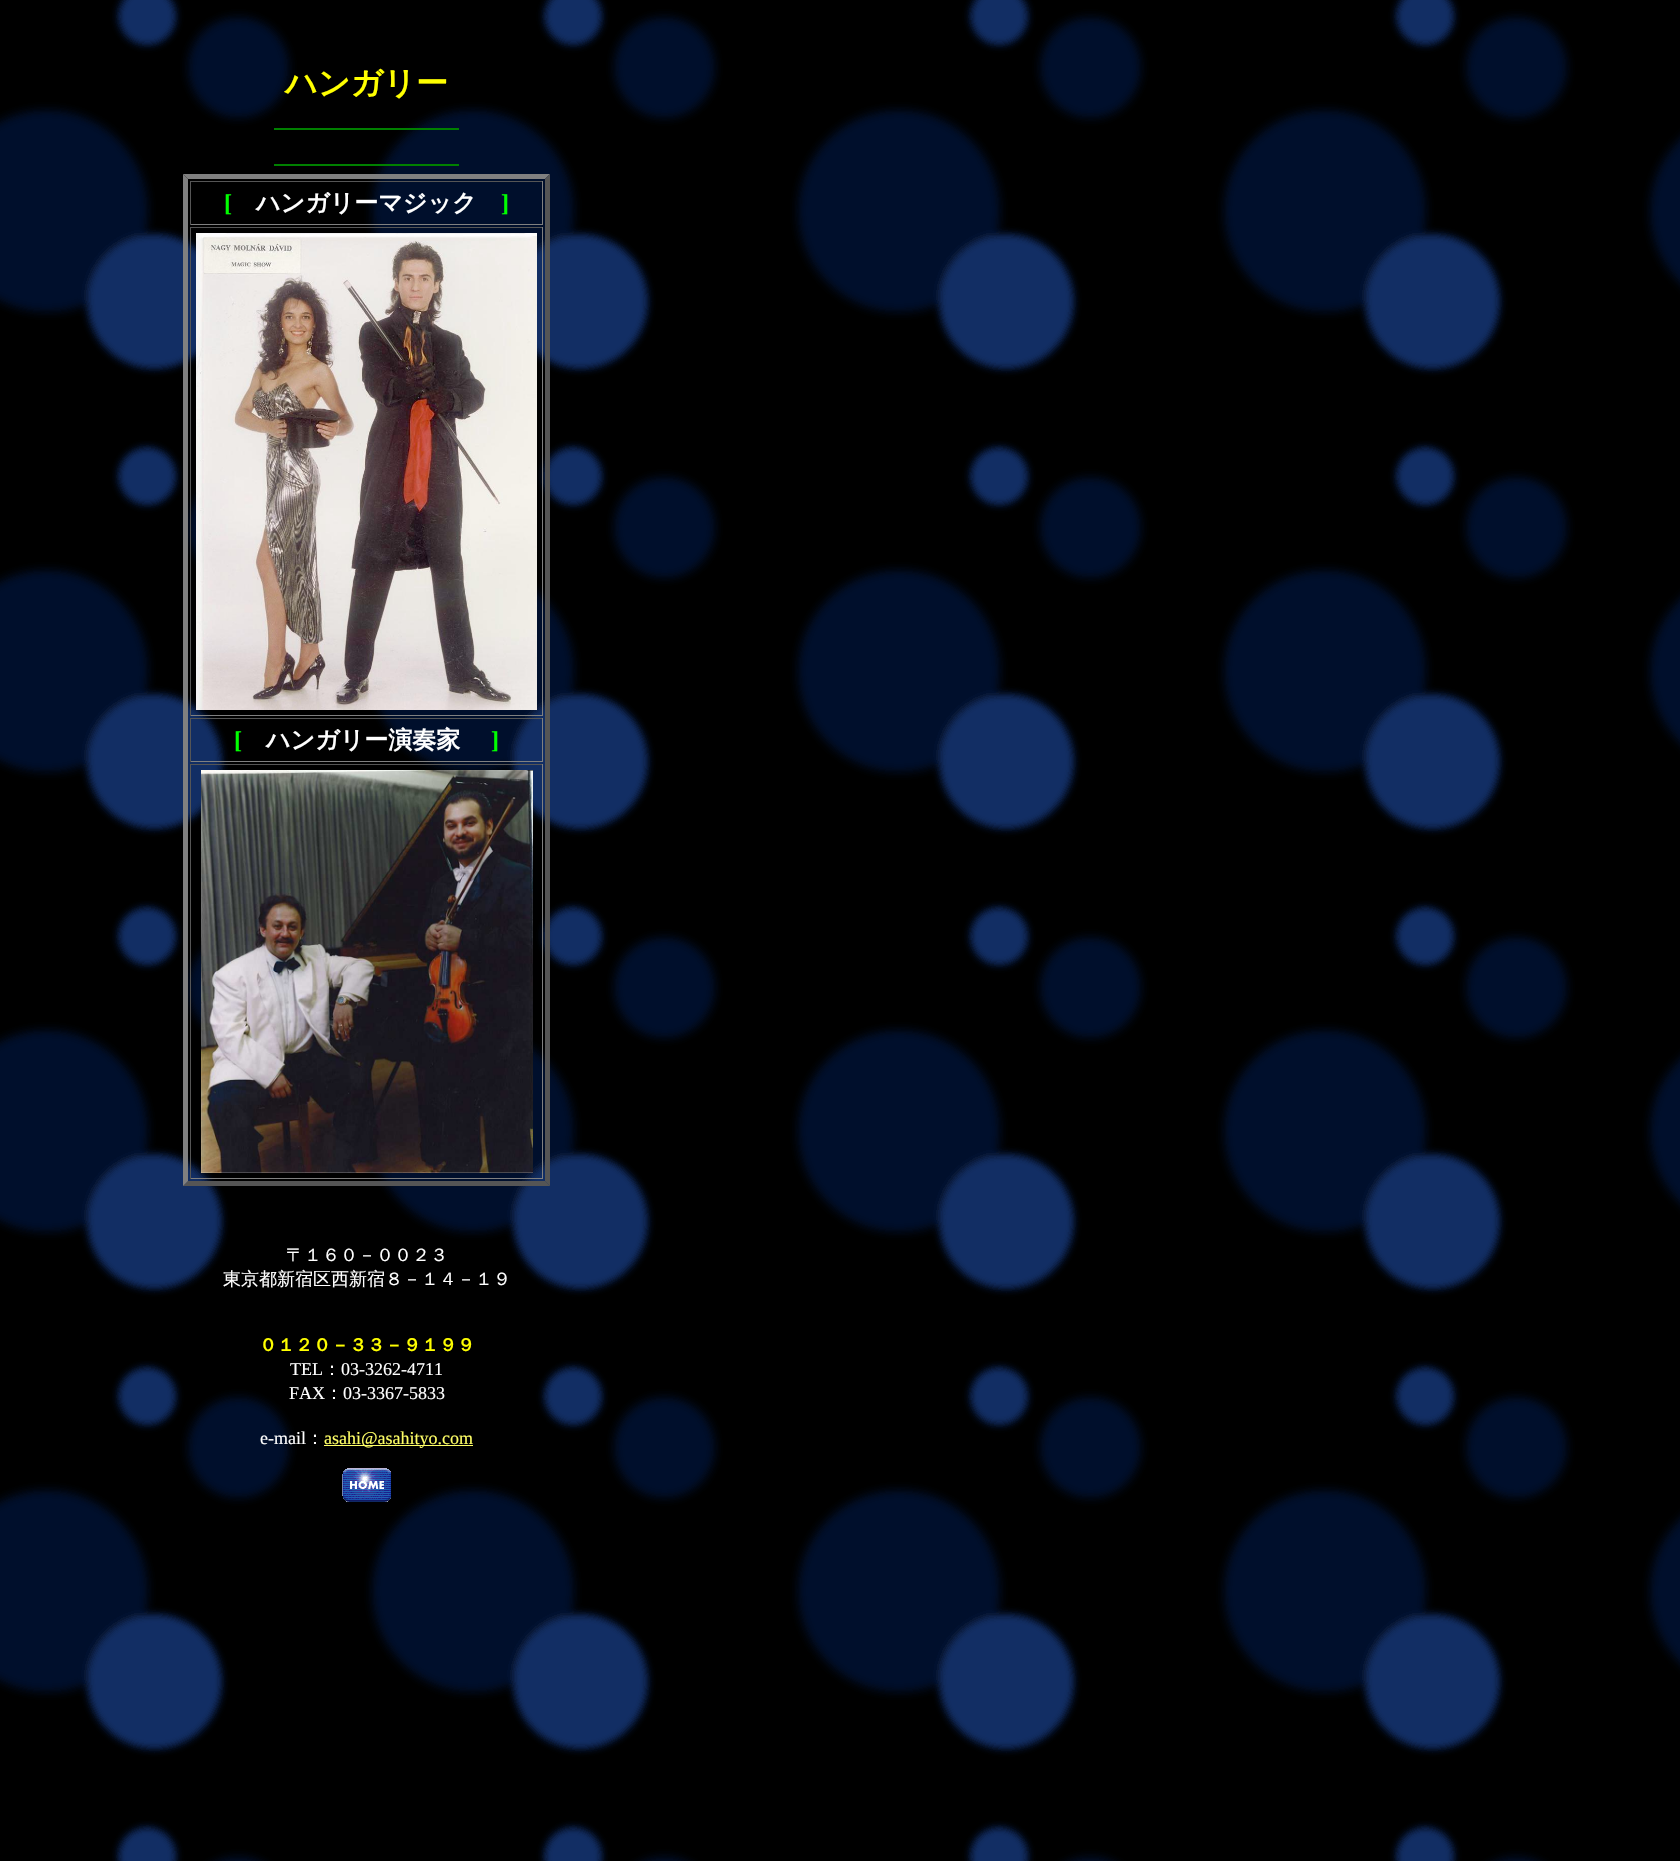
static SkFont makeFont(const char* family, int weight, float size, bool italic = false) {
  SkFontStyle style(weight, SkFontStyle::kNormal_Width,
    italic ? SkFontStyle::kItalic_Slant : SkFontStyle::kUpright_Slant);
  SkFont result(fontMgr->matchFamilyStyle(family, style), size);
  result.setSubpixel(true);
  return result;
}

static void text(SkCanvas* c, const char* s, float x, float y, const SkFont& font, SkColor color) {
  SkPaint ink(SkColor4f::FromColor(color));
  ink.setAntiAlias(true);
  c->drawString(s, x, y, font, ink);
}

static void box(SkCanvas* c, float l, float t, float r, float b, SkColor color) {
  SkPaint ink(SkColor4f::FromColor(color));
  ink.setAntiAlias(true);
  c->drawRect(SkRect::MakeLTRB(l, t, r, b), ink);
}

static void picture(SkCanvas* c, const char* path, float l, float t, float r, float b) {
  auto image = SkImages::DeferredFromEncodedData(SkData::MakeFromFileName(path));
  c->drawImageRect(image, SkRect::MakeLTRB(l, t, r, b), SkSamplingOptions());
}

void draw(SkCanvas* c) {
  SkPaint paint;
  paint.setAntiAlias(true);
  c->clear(0xffffffff);
  picture(c, "img_01.png", 0, 0, 1680, 1861);
  SkFont face1 = makeFont("WenQuanYi Zen Hei", 700, 32);
  text(c, "ハンガリー", 285, 94, face1, 0xffffff00);
  box(c, 274, 128, 459, 130, 0xff008000);
  box(c, 274, 164, 459, 166, 0xff008000);
  paint.setColor(0xff808080);
  c->drawPath(SkPathBuilder().moveTo(183, 174).lineTo(550, 174).lineTo(545, 179).lineTo(188, 179).close().detach(), paint);
  paint.setColor(0xff555555);
  c->drawPath(SkPathBuilder().moveTo(550, 174).lineTo(550, 1186).lineTo(545, 1181).lineTo(545, 179).close().detach(), paint);
  c->drawPath(SkPathBuilder().moveTo(550, 1186).lineTo(183, 1186).lineTo(188, 1181).lineTo(545, 1181).close().detach(), paint);
  paint.setColor(0xff808080);
  c->drawPath(SkPathBuilder().moveTo(183, 1186).lineTo(183, 174).lineTo(188, 179).lineTo(188, 1181).close().detach(), paint);
  box(c, 190, 181, 543, 182, 0xff555555);
  box(c, 542, 181, 543, 225, 0xff808080);
  box(c, 190, 224, 543, 225, 0xff808080);
  box(c, 190, 181, 191, 225, 0xff555555);
  SkFont face2 = makeFont("Liberation Serif", 700, 24);
  text(c, "[", 224, 211, face2, 0xff00ff00);
  SkFont face3 = makeFont("WenQuanYi Zen Hei", 700, 24);
  text(c, "ハンガリーマジック", 256, 211, face3, 0xffffffff);
  text(c, "]", 501, 211, face2, 0xff00ff00);
  box(c, 190, 227, 543, 228, 0xff555555);
  box(c, 542, 227, 543, 716, 0xff808080);
  box(c, 190, 715, 543, 716, 0xff808080);
  box(c, 190, 227, 191, 716, 0xff555555);
  picture(c, "img_02.png", 196, 233, 537, 710);
  box(c, 190, 718, 543, 719, 0xff555555);
  box(c, 542, 718, 543, 762, 0xff808080);
  box(c, 190, 761, 543, 762, 0xff808080);
  box(c, 190, 718, 191, 762, 0xff555555);
  text(c, "[", 234, 748, face2, 0xff00ff00);
  text(c, "ハンガリー演奏家", 266, 748, face3, 0xffffffff);
  text(c, "]", 491, 748, face2, 0xff00ff00);
  box(c, 190, 764, 543, 765, 0xff555555);
  box(c, 542, 764, 543, 1179, 0xff808080);
  box(c, 190, 1178, 543, 1179, 0xff808080);
  box(c, 190, 764, 191, 1179, 0xff555555);
  picture(c, "img_03.png", 201, 770, 533, 1173);
  SkFont face4 = makeFont("WenQuanYi Zen Hei", 500, 18);
  text(c, "〒１６０－００２３", 286, 1261, face4, 0xffffffff);
  text(c, "東京都新宿区西新宿８－１４－１９", 223, 1285, face4, 0xffffffff);
  SkFont face5 = makeFont("WenQuanYi Zen Hei", 700, 18);
  text(c, "０１２０－３３－９１９９", 259, 1351, face5, 0xffffff00);
  SkFont face6 = makeFont("Liberation Serif", 400, 18);
  text(c, "TEL", 290, 1375, face6, 0xffffffff);
  text(c, "：", 323, 1375, face4, 0xffffffff);
  text(c, "03‐3262-4711", 341, 1375, face6, 0xffffffff);
  text(c, "FAX", 289, 1399, face6, 0xffffffff);
  text(c, "：", 325, 1399, face4, 0xffffffff);
  text(c, "03-3367-5833", 343, 1399, face6, 0xffffffff);
  text(c, "e-mail", 260, 1444, face6, 0xffffffff);
  text(c, "：", 306, 1444, face4, 0xffffffff);
  box(c, 324, 1445, 473, 1446, 0xffffff66);
  text(c, "asahi@asahityo.com", 324, 1444, face6, 0xffffff66);
  picture(c, "img_04.png", 342, 1468, 391, 1502);
}
